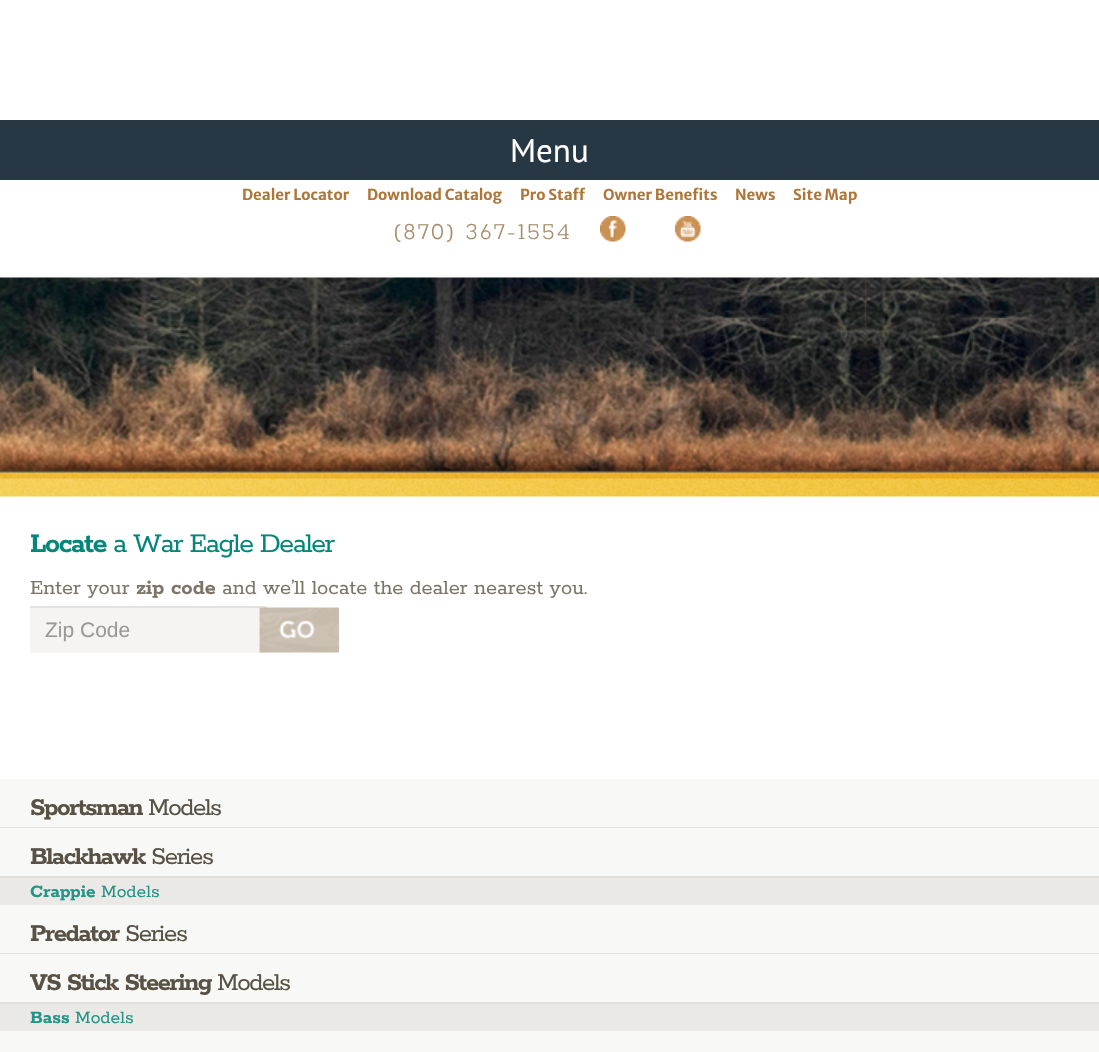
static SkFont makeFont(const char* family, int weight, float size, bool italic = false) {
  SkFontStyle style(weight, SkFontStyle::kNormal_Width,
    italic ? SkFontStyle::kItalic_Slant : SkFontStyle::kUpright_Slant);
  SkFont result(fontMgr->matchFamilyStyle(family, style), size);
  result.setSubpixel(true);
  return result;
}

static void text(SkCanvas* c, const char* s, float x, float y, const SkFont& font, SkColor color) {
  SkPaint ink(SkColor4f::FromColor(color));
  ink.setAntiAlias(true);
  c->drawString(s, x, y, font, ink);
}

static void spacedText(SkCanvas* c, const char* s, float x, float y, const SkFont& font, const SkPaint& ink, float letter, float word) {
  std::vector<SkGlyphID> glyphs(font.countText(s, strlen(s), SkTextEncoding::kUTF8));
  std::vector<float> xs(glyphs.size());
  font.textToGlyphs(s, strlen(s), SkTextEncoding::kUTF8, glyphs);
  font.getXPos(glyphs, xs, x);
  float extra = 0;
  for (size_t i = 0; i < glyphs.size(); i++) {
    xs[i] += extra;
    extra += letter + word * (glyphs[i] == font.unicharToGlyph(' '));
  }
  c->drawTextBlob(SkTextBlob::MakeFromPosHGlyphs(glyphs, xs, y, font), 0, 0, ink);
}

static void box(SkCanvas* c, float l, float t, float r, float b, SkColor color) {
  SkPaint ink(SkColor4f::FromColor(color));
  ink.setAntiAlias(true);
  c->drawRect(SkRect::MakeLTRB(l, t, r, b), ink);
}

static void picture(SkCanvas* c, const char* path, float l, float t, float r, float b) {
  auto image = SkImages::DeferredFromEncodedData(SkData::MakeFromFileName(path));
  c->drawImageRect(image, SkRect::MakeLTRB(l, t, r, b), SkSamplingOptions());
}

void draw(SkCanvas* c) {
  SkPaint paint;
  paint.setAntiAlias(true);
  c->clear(0xffffffff);
  box(c, 0, 120, 1099, 180, 0xff283744);
  SkFont face1 = makeFont("PT Sans", 400, 33);
  text(c, "Menu", 510, 162, face1, 0xffffffff);
  SkFont face2 = makeFont("Merriweather Sans", 700, 15);
  text(c, "Dealer Locator", 242, 200, face2, 0xffae773a);
  text(c, "Download Catalog", 367, 200, face2, 0xffae773a);
  text(c, "Pro Staff", 520, 200, face2, 0xffae773a);
  text(c, "Owner Benefits", 603, 200, face2, 0xffae773a);
  text(c, "News", 735, 200, face2, 0xffae773a);
  text(c, "Site Map", 793, 200, face2, 0xffae773a);
  SkFont face3 = makeFont("Rokkitt", 300, 25.5f);
  paint.setColor(0xffa78c68);
  spacedText(c, "(870) 367-1554", 393, 239, face3, paint, 2, 0);
  picture(c, "img_01.png", 600, 216, 626, 242);
  picture(c, "img_02.png", 675, 216, 701, 242);
  picture(c, "img_03.png", 0, 277, 1099, 497);
  SkFont face4 = makeFont("Rokkitt", 700, 30);
  paint.setColor(0xff05867b);
  spacedText(c, "Locate", 30, 552, face4, paint, -1.4f, 0);
  SkFont face5 = makeFont("Rokkitt", 400, 30);
  spacedText(c, "a War Eagle Dealer", 113, 552, face5, paint, -1.4f, 0);
  SkFont face6 = makeFont("Rokkitt", 400, 22.5f);
  text(c, "Enter your", 30, 594, face6, 0xff7d7668);
  SkFont face7 = makeFont("Rokkitt", 700, 22.5f);
  text(c, "zip code", 136, 594, face7, 0xff7d7668);
  text(c, "and we’ll locate the dealer nearest you.", 222, 594, face6, 0xff7d7668);
  box(c, 30, 608, 267, 653, 0xfff5f4f3);
  box(c, 30, 606, 267, 608, 0xffe3e2e1);
  SkFont face8 = makeFont("Liberation Sans", 400, 21);
  text(c, "Zip Code", 45, 637, face8, 0xff999999);
  picture(c, "img_04.png", 259, 607, 339, 653);
  box(c, 0, 779, 1099, 827, 0xfff8f8f7);
  box(c, 0, 827, 1099, 828, 0xffe1dfdb);
  SkFont face9 = makeFont("Rokkitt", 700, 27);
  paint.setColor(0xff585144);
  spacedText(c, "Sportsman", 30, 815, face9, paint, -1.4f, 0);
  SkFont face10 = makeFont("Rokkitt", 400, 27);
  spacedText(c, "Models", 148, 815, face10, paint, -1.4f, 0);
  box(c, 0, 828, 1099, 876, 0xfff8f8f7);
  box(c, 0, 876, 1099, 878, 0xffe1dfdb);
  spacedText(c, "Blackhawk", 30, 864, face9, paint, -1.4f, 0);
  spacedText(c, "Series", 151, 864, face10, paint, -1.4f, 0);
  box(c, 0, 878, 1099, 905, 0xffeae9e6);
  SkFont face11 = makeFont("Rokkitt", 700, 19.5f);
  text(c, "Crappie", 30, 897, face11, 0xff229488);
  SkFont face12 = makeFont("Rokkitt", 400, 19.5f);
  text(c, "Models", 101, 897, face12, 0xff229488);
  box(c, 0, 905, 1099, 953, 0xfff8f8f7);
  box(c, 0, 953, 1099, 954, 0xffe1dfdb);
  spacedText(c, "Predator", 30, 941, face9, paint, -1.4f, 0);
  spacedText(c, "Series", 125, 941, face10, paint, -1.4f, 0);
  box(c, 0, 954, 1099, 1002, 0xfff8f8f7);
  box(c, 0, 1002, 1099, 1004, 0xffe1dfdb);
  spacedText(c, "VS Stick Steering", 30, 990, face9, paint, -1.4f, 0);
  spacedText(c, "Models", 217, 990, face10, paint, -1.4f, 0);
  box(c, 0, 1004, 1099, 1031, 0xffeae9e6);
  text(c, "Bass", 30, 1023, face11, 0xff229488);
  text(c, "Models", 75, 1023, face12, 0xff229488);
  box(c, 0, 1031, 1099, 1052, 0xfff8f8f7);
}
